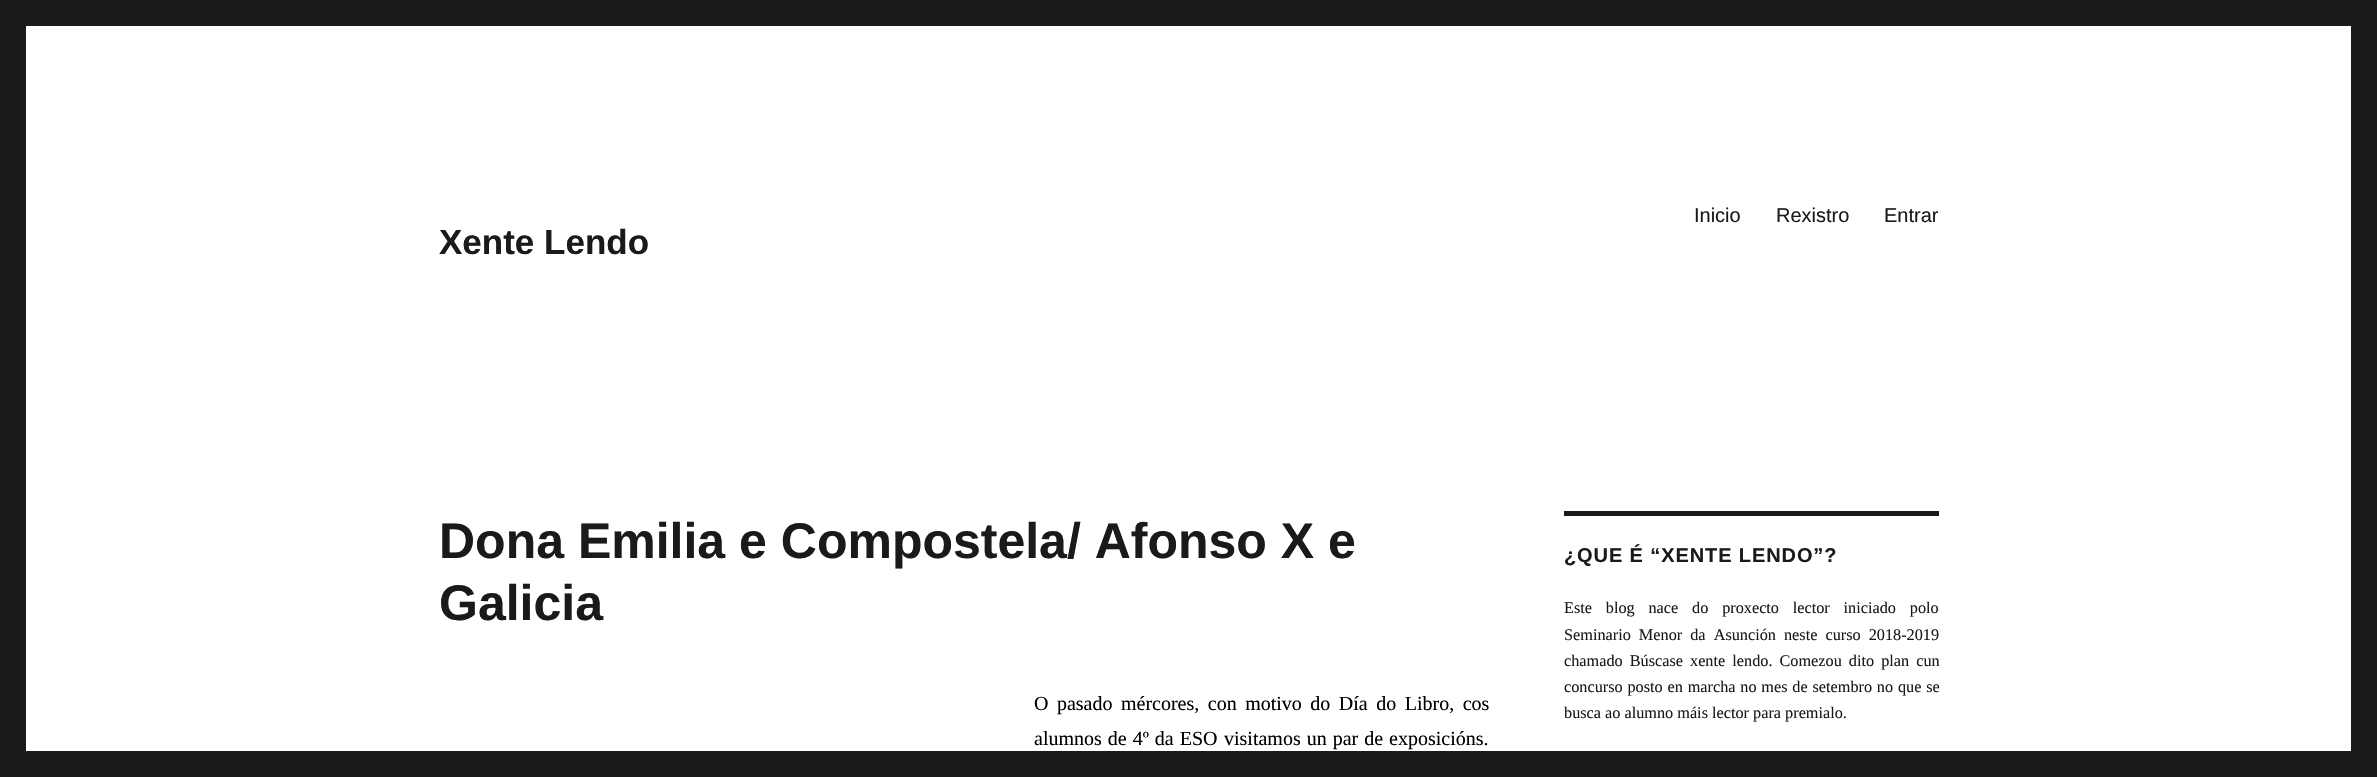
static SkFont makeFont(const char* family, int weight, float size, bool italic = false) {
  SkFontStyle style(weight, SkFontStyle::kNormal_Width,
    italic ? SkFontStyle::kItalic_Slant : SkFontStyle::kUpright_Slant);
  SkFont result(fontMgr->matchFamilyStyle(family, style), size);
  result.setSubpixel(true);
  return result;
}

static void text(SkCanvas* c, const char* s, float x, float y, const SkFont& font, SkColor color) {
  SkPaint ink(SkColor4f::FromColor(color));
  ink.setAntiAlias(true);
  c->drawString(s, x, y, font, ink);
}

static void spacedText(SkCanvas* c, const char* s, float x, float y, const SkFont& font, const SkPaint& ink, float letter, float word) {
  std::vector<SkGlyphID> glyphs(font.countText(s, strlen(s), SkTextEncoding::kUTF8));
  std::vector<float> xs(glyphs.size());
  font.textToGlyphs(s, strlen(s), SkTextEncoding::kUTF8, glyphs);
  font.getXPos(glyphs, xs, x);
  float extra = 0;
  for (size_t i = 0; i < glyphs.size(); i++) {
    xs[i] += extra;
    extra += letter + word * (glyphs[i] == font.unicharToGlyph(' '));
  }
  c->drawTextBlob(SkTextBlob::MakeFromPosHGlyphs(glyphs, xs, y, font), 0, 0, ink);
}

static void box(SkCanvas* c, float l, float t, float r, float b, SkColor color) {
  SkPaint ink(SkColor4f::FromColor(color));
  ink.setAntiAlias(true);
  c->drawRect(SkRect::MakeLTRB(l, t, r, b), ink);
}

void draw(SkCanvas* c) {
  SkPaint paint;
  paint.setAntiAlias(true);
  c->clear(0xff1a1a1a);
  box(c, 26, 26, 2351, 751, 0xffffffff);
  SkFont face1 = makeFont("Liberation Sans", 400, 20);
  text(c, "Inicio", 1694, 222, face1, 0xff1a1a1a);
  text(c, "Rexistro", 1776, 222, face1, 0xff1a1a1a);
  text(c, "Entrar", 1884, 222, face1, 0xff1a1a1a);
  SkFont face2 = makeFont("Liberation Sans", 700, 35);
  text(c, "Xente Lendo", 439, 254, face2, 0xff1a1a1a);
  SkFont face3 = makeFont("Liberation Sans", 700, 50);
  text(c, "Dona Emilia e Compostela/ Afonso X e", 439, 558, face3, 0xff1a1a1a);
  text(c, "Galicia", 439, 620, face3, 0xff1a1a1a);
  SkFont face4 = makeFont("Liberation Serif", 400, 20);
  paint.setColor(0xff000000);
  spacedText(c, "O pasado mércores, con motivo do Día do Libro, cos", 1034, 710, face4, paint, 0, 3.5f);
  spacedText(c, "alumnos de 4º da ESO", 1034, 745, face4, paint, 0, 1);
  spacedText(c, "visitamos un par de exposicións.", 1224, 745, face4, paint, 0, 1);
  box(c, 1564, 511, 1939, 516, 0xff1a1a1a);
  SkFont face5 = makeFont("Liberation Sans", 700, 20);
  paint.setColor(0xff1a1a1a);
  spacedText(c, "¿QUE É “XENTE LENDO”?", 1564, 562, face5, paint, 0.9f, 0);
  SkFont face6 = makeFont("Liberation Serif", 400, 16.25f);
  spacedText(c, "Este blog nace do proxecto lector iniciado polo", 1564, 613, face6, paint, 0, 9.75f);
  spacedText(c, "Seminario Menor da Asunción neste curso 2018-2019", 1564, 640, face6, paint, 0, 4);
  spacedText(c, "chamado Búscase xente lendo. Comezou dito plan cun", 1564, 666, face6, paint, 0, 3);
  spacedText(c, "concurso posto en marcha no mes de setembro no que se", 1564, 692, face6, paint, 0, 0.75f);
  text(c, "busca ao alumno máis lector para premialo.", 1564, 718, face6, 0xff1a1a1a);
}
